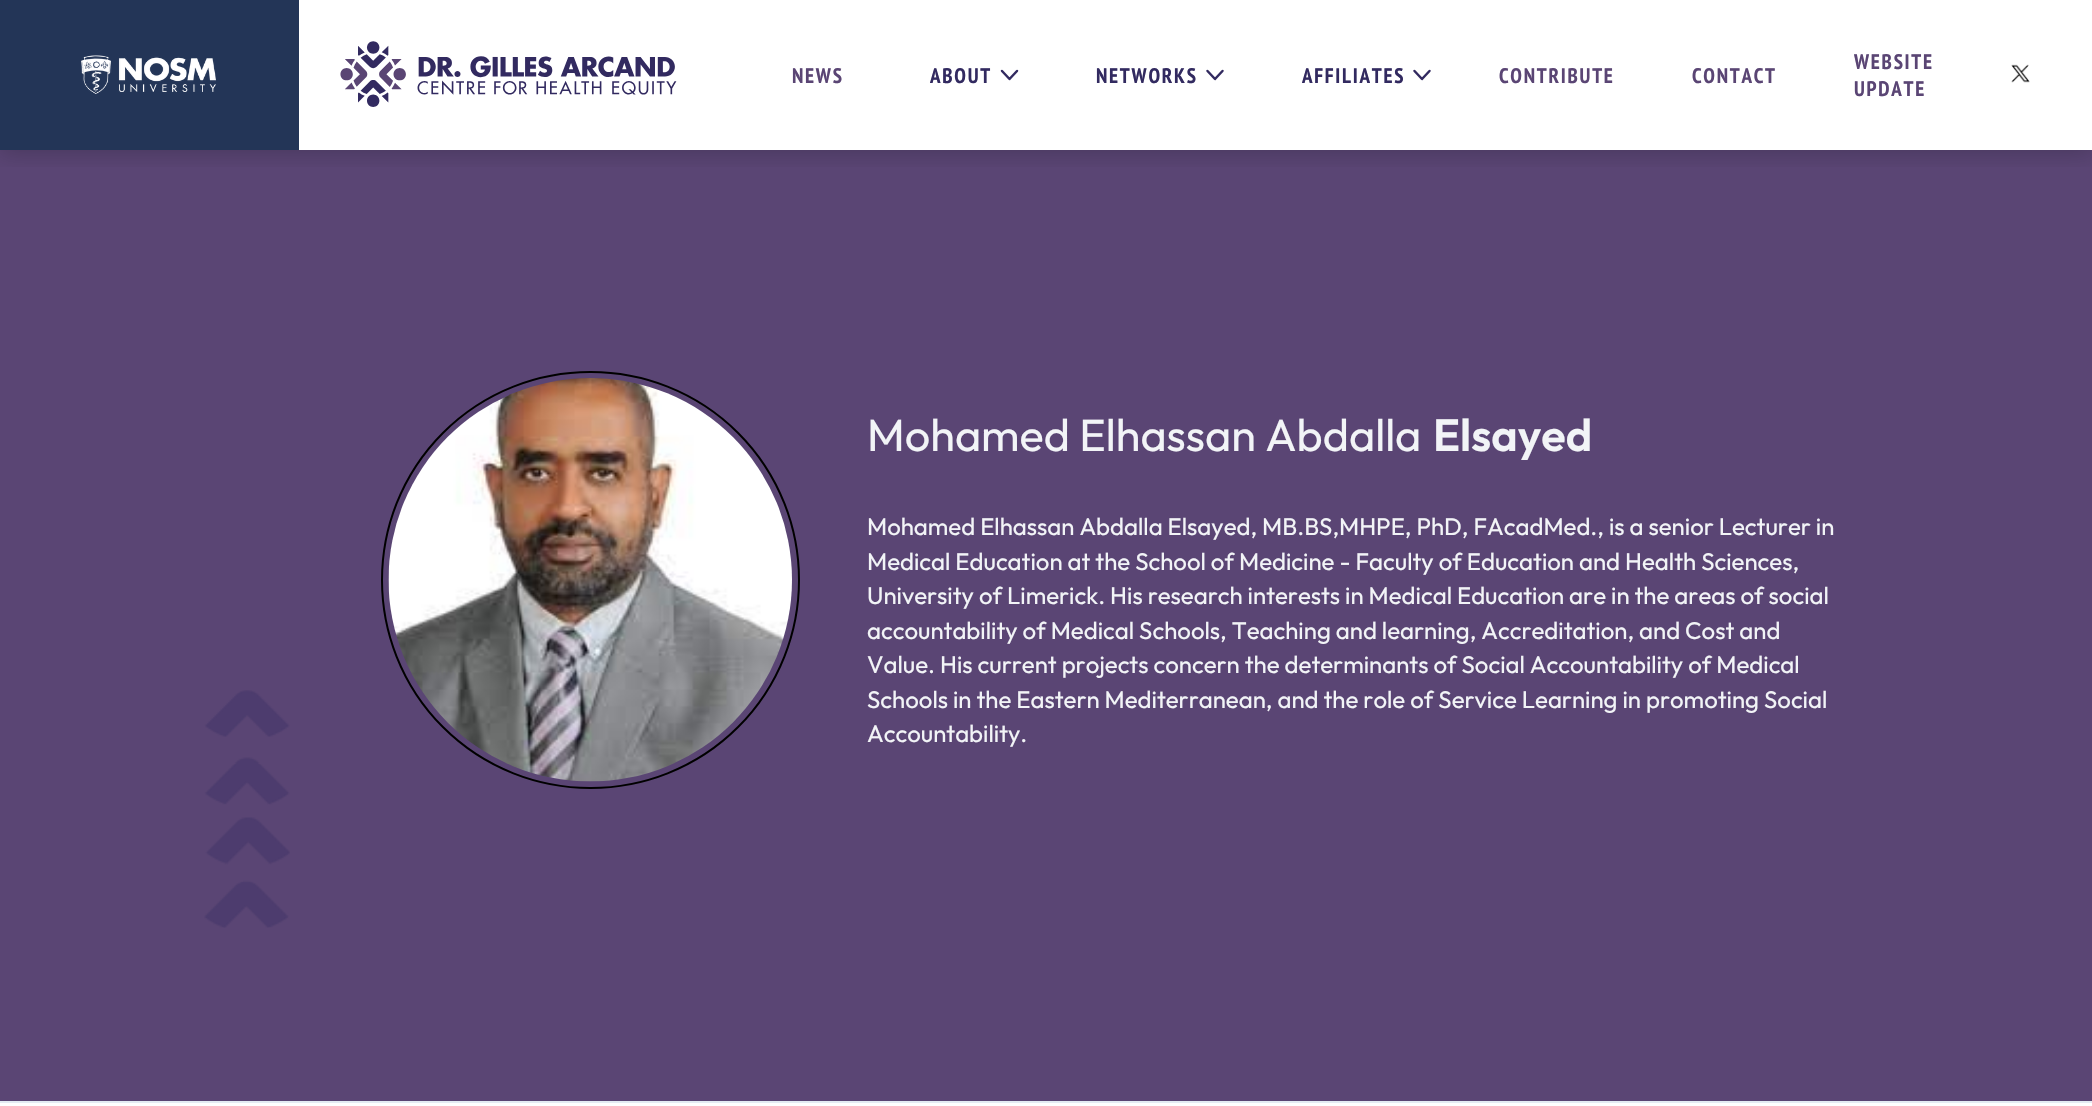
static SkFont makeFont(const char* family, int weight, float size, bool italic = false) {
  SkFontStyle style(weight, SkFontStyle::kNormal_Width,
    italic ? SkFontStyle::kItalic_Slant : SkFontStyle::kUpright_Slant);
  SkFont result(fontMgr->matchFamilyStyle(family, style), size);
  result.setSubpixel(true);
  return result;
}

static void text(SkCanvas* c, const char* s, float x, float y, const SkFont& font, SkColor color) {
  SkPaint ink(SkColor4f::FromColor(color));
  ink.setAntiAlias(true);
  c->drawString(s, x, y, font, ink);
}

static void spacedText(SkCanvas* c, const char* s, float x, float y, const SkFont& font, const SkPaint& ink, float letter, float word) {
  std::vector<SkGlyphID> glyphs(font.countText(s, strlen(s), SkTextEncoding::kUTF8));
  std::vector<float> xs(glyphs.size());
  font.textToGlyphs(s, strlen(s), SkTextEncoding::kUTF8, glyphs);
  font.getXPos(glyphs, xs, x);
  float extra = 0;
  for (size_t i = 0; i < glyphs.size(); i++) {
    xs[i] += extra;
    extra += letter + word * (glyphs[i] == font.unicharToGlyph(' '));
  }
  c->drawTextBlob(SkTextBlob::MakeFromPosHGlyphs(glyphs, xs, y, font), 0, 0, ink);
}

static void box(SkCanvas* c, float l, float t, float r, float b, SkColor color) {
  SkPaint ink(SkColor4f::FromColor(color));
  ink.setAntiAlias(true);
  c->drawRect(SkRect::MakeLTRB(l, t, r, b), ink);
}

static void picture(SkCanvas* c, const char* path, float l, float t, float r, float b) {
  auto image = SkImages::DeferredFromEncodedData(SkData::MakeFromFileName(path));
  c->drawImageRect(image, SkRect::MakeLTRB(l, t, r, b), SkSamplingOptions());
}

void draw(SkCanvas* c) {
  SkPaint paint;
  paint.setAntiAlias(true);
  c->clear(0xffffffff);
  box(c, 0, 150, 2092, 1101, 0xff5a4574);
  c->save();
  c->clipRect(SkRect::MakeLTRB(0, 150, 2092, 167));
  paint.setColor(0x33000000);
  paint.setMaskFilter(SkMaskFilter::MakeBlur(kNormal_SkBlurStyle, 11));
  c->drawRect(SkRect::MakeLTRB(0, 3, 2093, 153), paint);
  paint.setMaskFilter(nullptr);
  c->restore();
  box(c, 0, 0, 299, 150, 0xff233557);
  picture(c, "img_01.png", 81, 55, 216, 94);
  picture(c, "img_02.png", 340, 41, 677, 107);
  SkFont face1 = makeFont("PT Sans Narrow", 700, 21);
  paint.setColor(0xff5a4574);
  spacedText(c, "NEWS", 792, 83, face1, paint, 1.75f, 0);
  paint.setColor(0xff322a60);
  spacedText(c, "ABOUT", 930, 83, face1, paint, 1.75f, 0);
  paint.setStyle(SkPaint::kStroke_Style);
  paint.setStrokeWidth(2.5f);
  paint.setStrokeCap(SkPaint::kRound_Cap);
  paint.setStrokeJoin(SkPaint::kRound_Join);
  c->drawPath(SkPathBuilder().moveTo(1002, 71).lineTo(1009.5f, 79).lineTo(1017, 71).detach(), paint);
  paint.setStyle(SkPaint::kFill_Style);
  spacedText(c, "NETWORKS", 1096, 83, face1, paint, 1.75f, 0);
  paint.setStyle(SkPaint::kStroke_Style);
  c->drawPath(SkPathBuilder().moveTo(1207.5f, 71).lineTo(1215, 79).lineTo(1222.5f, 71).detach(), paint);
  paint.setStyle(SkPaint::kFill_Style);
  spacedText(c, "AFFILIATES", 1302, 83, face1, paint, 1.75f, 0);
  paint.setStyle(SkPaint::kStroke_Style);
  c->drawPath(SkPathBuilder().moveTo(1414.5f, 71).lineTo(1422, 79).lineTo(1429.5f, 71).detach(), paint);
  paint.setStyle(SkPaint::kFill_Style);
  paint.setColor(0xff5a4574);
  spacedText(c, "CONTRIBUTE", 1499, 83, face1, paint, 1.75f, 0);
  spacedText(c, "CONTACT", 1692, 83, face1, paint, 1.75f, 0);
  spacedText(c, "WEBSITE", 1854, 69, face1, paint, 1.75f, 0);
  spacedText(c, "UPDATE", 1854, 96, face1, paint, 1.75f, 0);
  picture(c, "img_03.png", 2011, 64, 2030, 83);
  picture(c, "img_04.png", 204, 690, 290, 928);
  box(c, 0, 1101, 2092, 1103, 0xffe4ebf3);
  paint.setStyle(SkPaint::kStroke_Style);
  paint.setStrokeWidth(2);
  paint.setStrokeCap(SkPaint::kButt_Cap);
  paint.setStrokeJoin(SkPaint::kMiter_Join);
  paint.setColor(0xff000000);
  c->drawRoundRect(SkRect::MakeLTRB(382, 372, 799, 788), 208, 208, paint);
  picture(c, "img_05.png", 388, 378, 792, 782);
  SkFont face2 = makeFont("Outfit", 400, 45);
  text(c, "Mohamed Elhassan Abdalla", 867, 451, face2, 0xfff2f4f7);
  SkFont face3 = makeFont("Outfit", 600, 45);
  text(c, "Elsayed", 1433, 451, face3, 0xfff2f4f7);
  SkFont face4 = makeFont("Outfit", 400, 24);
  text(c, "Mohamed Elhassan Abdalla Elsayed, MB.BS,MHPE, PhD, FAcadMed., is a senior Lecturer in", 867, 535, face4, 0xfff2f4f7);
  text(c, "Medical Education at the School of Medicine - Faculty of Education and Health Sciences,", 867, 570, face4, 0xfff2f4f7);
  text(c, "University of Limerick. His research interests in Medical Education are in the areas of social", 867, 604, face4, 0xfff2f4f7);
  text(c, "accountability of Medical Schools, Teaching and learning, Accreditation, and Cost and", 867, 639, face4, 0xfff2f4f7);
  text(c, "Value. His current projects concern the determinants of Social Accountability of Medical", 867, 673, face4, 0xfff2f4f7);
  text(c, "Schools in the Eastern Mediterranean, and the role of Service Learning in promoting Social", 867, 708, face4, 0xfff2f4f7);
  text(c, "Accountability.", 867, 742, face4, 0xfff2f4f7);
}
